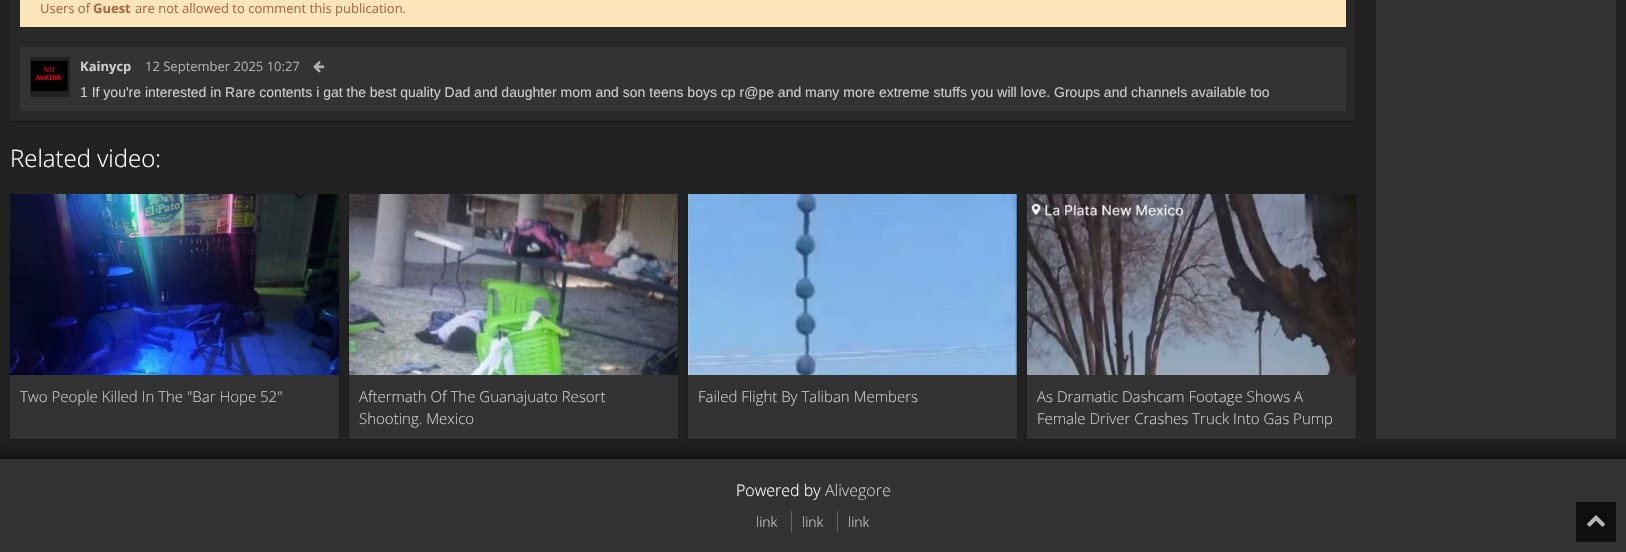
static SkFont makeFont(const char* family, int weight, float size, bool italic = false) {
  SkFontStyle style(weight, SkFontStyle::kNormal_Width,
    italic ? SkFontStyle::kItalic_Slant : SkFontStyle::kUpright_Slant);
  SkFont result(fontMgr->matchFamilyStyle(family, style), size);
  result.setSubpixel(true);
  return result;
}

static void text(SkCanvas* c, const char* s, float x, float y, const SkFont& font, SkColor color) {
  SkPaint ink(SkColor4f::FromColor(color));
  ink.setAntiAlias(true);
  c->drawString(s, x, y, font, ink);
}

static void box(SkCanvas* c, float l, float t, float r, float b, SkColor color) {
  SkPaint ink(SkColor4f::FromColor(color));
  ink.setAntiAlias(true);
  c->drawRect(SkRect::MakeLTRB(l, t, r, b), ink);
}

static void picture(SkCanvas* c, const char* path, float l, float t, float r, float b) {
  auto image = SkImages::DeferredFromEncodedData(SkData::MakeFromFileName(path));
  c->drawImageRect(image, SkRect::MakeLTRB(l, t, r, b), SkSamplingOptions());
}

void draw(SkCanvas* c) {
  SkPaint paint;
  paint.setAntiAlias(true);
  c->clear(0xff222222);
  paint.setColor(0x66000000);
  paint.setMaskFilter(SkMaskFilter::MakeBlur(kNormal_SkBlurStyle, 1));
  c->drawRect(SkRect::MakeLTRB(10, -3, 1356, 122), paint);
  paint.setMaskFilter(nullptr);
  box(c, 10, 0, 1356, 121, 0xff282828);
  box(c, 20, 0, 1346, 27, 0xfffce5ba);
  SkFont face1 = makeFont("Open Sans", 400, 13);
  text(c, "Users of", 40, 13, face1, 0xffa76846);
  SkFont face2 = makeFont("Open Sans", 700, 13);
  text(c, "Guest", 93, 13, face2, 0xffa76846);
  text(c, "are not allowed to comment this publication.", 135, 13, face1, 0xffa76846);
  box(c, 20, 47, 1346, 111, 0xff333333);
  picture(c, "img_01.png", 30, 57, 70, 97);
  text(c, "Kainycp", 80, 71, face2, 0xffcccccc);
  text(c, "12 September 2025 10:27", 145, 71, face1, 0xffadadad);
  picture(c, "img_02.png", 313, 61, 325, 73);
  SkFont face3 = makeFont("Liberation Sans", 400, 14);
  text(c, "1 If you're interested in Rare contents i gat the best quality Dad and daughter mom and son teens boys cp r@pe and many more extreme stuffs you will love. Groups and channels available too", 80, 97, face3, 0xffcccccc);
  SkFont face4 = makeFont("Open Sans", 300, 24);
  text(c, "Related video:", 10, 167, face4, 0xffffffff);
  paint.setMaskFilter(SkMaskFilter::MakeBlur(kNormal_SkBlurStyle, 1));
  c->drawRect(SkRect::MakeLTRB(10, 195, 339, 440), paint);
  paint.setMaskFilter(nullptr);
  box(c, 10, 375, 339, 439, 0xff333333);
  picture(c, "img_03.png", 10, 194, 339, 375);
  SkFont face5 = makeFont("Open Sans", 300, 15);
  text(c, "Two People Killed In The \"Bar Hope 52\"", 20, 402, face5, 0xffcccccc);
  paint.setMaskFilter(SkMaskFilter::MakeBlur(kNormal_SkBlurStyle, 1));
  c->drawRect(SkRect::MakeLTRB(349, 195, 678, 440), paint);
  paint.setMaskFilter(nullptr);
  box(c, 349, 375, 678, 439, 0xff333333);
  picture(c, "img_04.png", 349, 194, 678, 375);
  text(c, "Aftermath Of The Guanajuato Resort", 359, 402, face5, 0xffcccccc);
  text(c, "Shooting. Mexico", 359, 424, face5, 0xffcccccc);
  paint.setMaskFilter(SkMaskFilter::MakeBlur(kNormal_SkBlurStyle, 1));
  c->drawRect(SkRect::MakeLTRB(688, 195, 1017, 440), paint);
  paint.setMaskFilter(nullptr);
  box(c, 688, 375, 1017, 439, 0xff333333);
  picture(c, "img_05.png", 688, 194, 1017, 375);
  text(c, "Failed Flight By Taliban Members", 698, 402, face5, 0xffcccccc);
  paint.setMaskFilter(SkMaskFilter::MakeBlur(kNormal_SkBlurStyle, 1));
  c->drawRect(SkRect::MakeLTRB(1027, 195, 1356, 440), paint);
  paint.setMaskFilter(nullptr);
  box(c, 1027, 375, 1356, 439, 0xff333333);
  picture(c, "img_06.png", 1027, 194, 1356, 375);
  text(c, "As Dramatic Dashcam Footage Shows A", 1037, 402, face5, 0xffcccccc);
  text(c, "Female Driver Crashes Truck Into Gas Pump", 1037, 424, face5, 0xffcccccc);
  box(c, 1376, 0, 1616, 439, 0xff333333);
  paint.setColor(0xe6000000);
  paint.setMaskFilter(SkMaskFilter::MakeBlur(kNormal_SkBlurStyle, 10));
  c->drawRect(SkRect::MakeLTRB(-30, 459, 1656, 512), paint);
  paint.setMaskFilter(nullptr);
  box(c, 0, 459, 1626, 552, 0xff333333);
  SkFont face6 = makeFont("Open Sans", 300, 16);
  text(c, "Powered by", 736, 496, face6, 0xffffffff);
  text(c, "Alivegore", 825, 496, face6, 0xffcccccc);
  SkFont face7 = makeFont("Open Sans", 300, 14);
  text(c, "link", 756, 527, face7, 0xffcccccc);
  box(c, 791, 511, 792, 532, 0xff666666);
  text(c, "link", 802, 527, face7, 0xffcccccc);
  box(c, 837, 511, 838, 532, 0xff666666);
  text(c, "link", 848, 527, face7, 0xffcccccc);
  box(c, 1576, 502, 1616, 542, 0xff0f0f0f);
  picture(c, "img_07.png", 1587, 515, 1605, 527);
}
